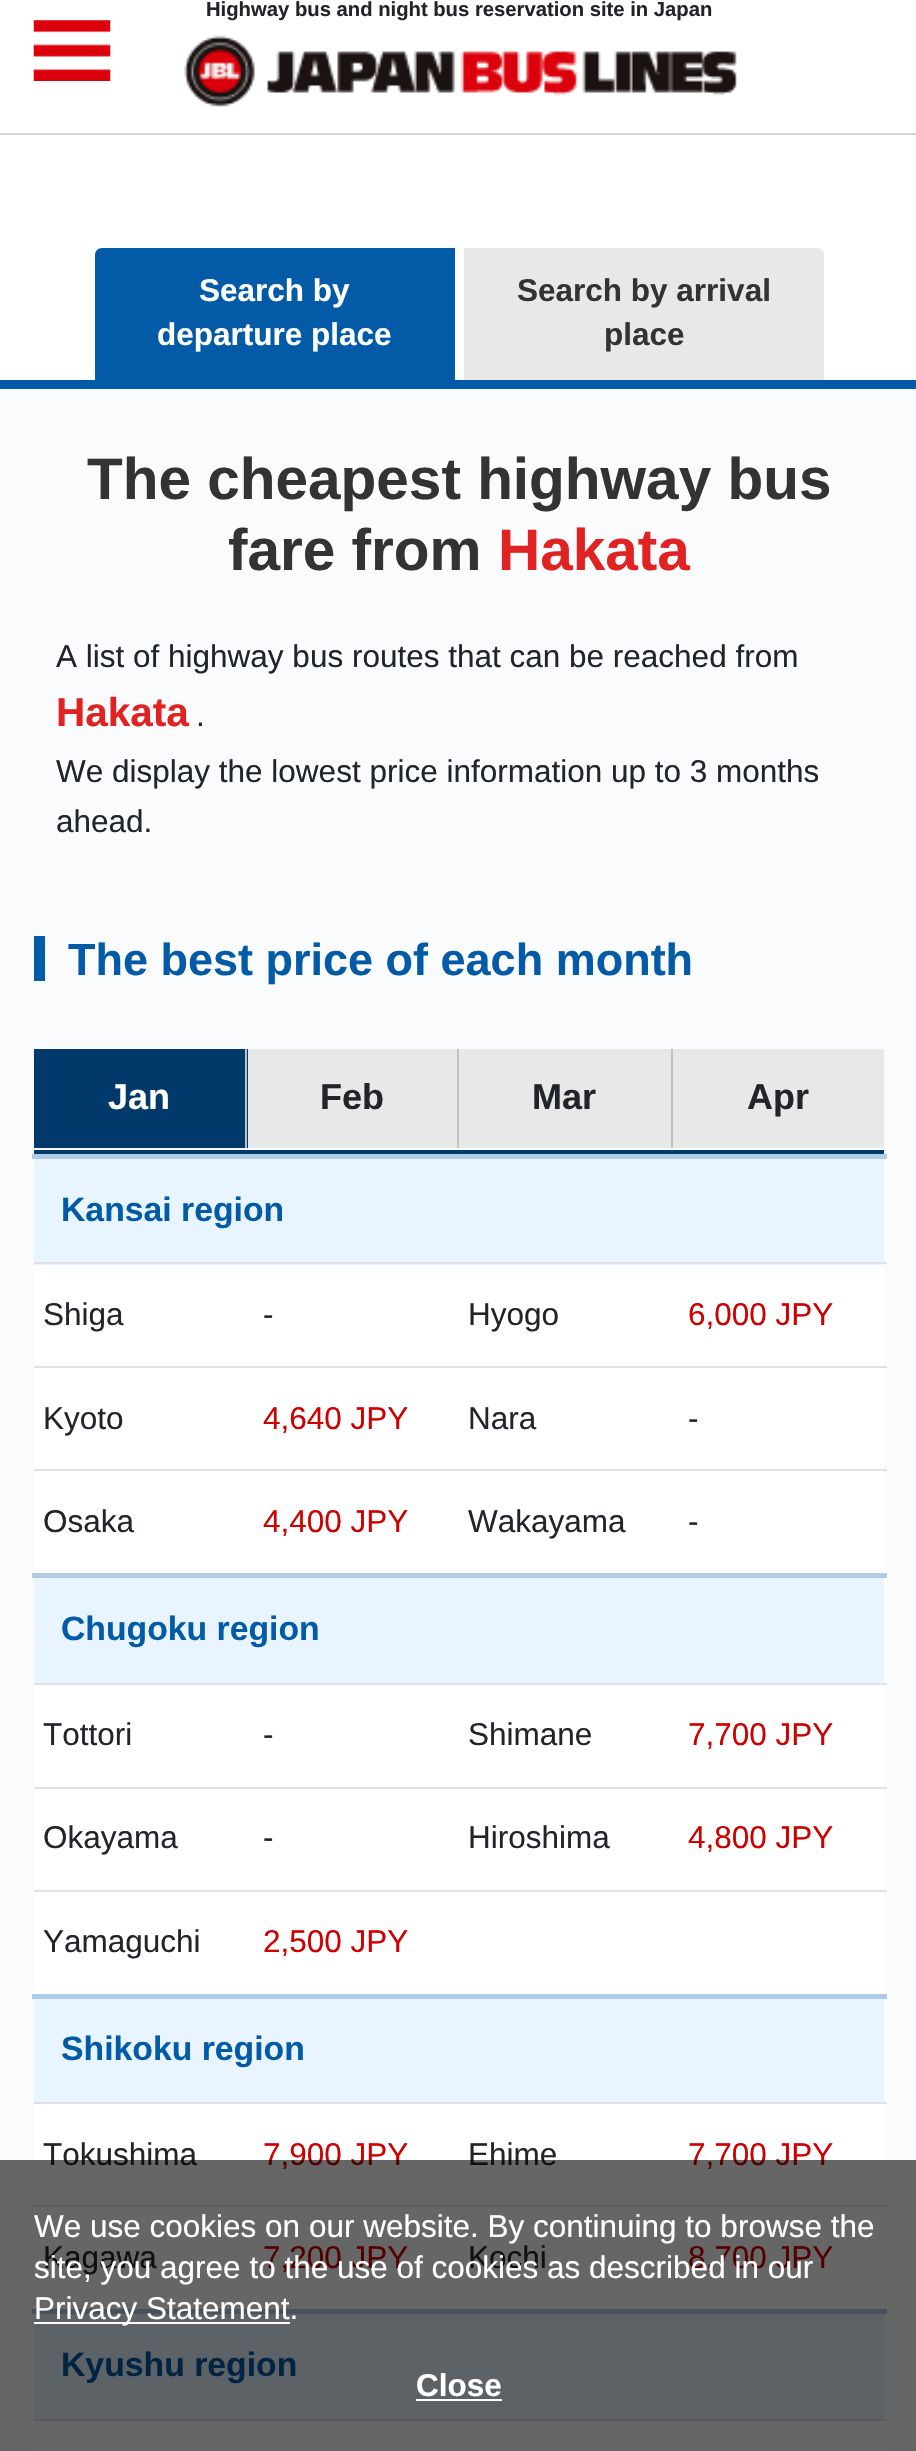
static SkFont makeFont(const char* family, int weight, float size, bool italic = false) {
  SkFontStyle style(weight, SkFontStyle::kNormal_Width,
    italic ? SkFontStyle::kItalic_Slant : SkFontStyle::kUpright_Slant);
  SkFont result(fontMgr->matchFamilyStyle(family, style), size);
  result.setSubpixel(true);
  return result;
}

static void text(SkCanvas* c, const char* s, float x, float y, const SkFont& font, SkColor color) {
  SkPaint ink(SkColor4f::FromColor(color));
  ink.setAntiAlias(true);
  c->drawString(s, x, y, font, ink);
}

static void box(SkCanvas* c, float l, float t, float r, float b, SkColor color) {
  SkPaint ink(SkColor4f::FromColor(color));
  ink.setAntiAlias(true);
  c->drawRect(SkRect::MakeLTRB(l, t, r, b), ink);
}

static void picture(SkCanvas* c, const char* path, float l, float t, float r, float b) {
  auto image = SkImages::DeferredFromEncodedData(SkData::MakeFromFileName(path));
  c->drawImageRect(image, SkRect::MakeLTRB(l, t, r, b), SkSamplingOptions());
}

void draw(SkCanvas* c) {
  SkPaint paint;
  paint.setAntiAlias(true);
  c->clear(0xffffffff);
  box(c, 0, 133, 916, 135, 0xffd5d5d5);
  SkFont face1 = makeFont("Liberation Sans", 700, 20.25f);
  text(c, "Highway bus and night bus reservation site in Japan", 206, 16, face1, 0xff212529);
  picture(c, "img_01.png", 184, 35, 737, 107);
  picture(c, "img_02.png", 33, 20, 111, 81);
  box(c, 0, 380, 916, 389, 0xff035aa6);
  paint.setColor(0xff035aa6);
  c->drawPath(SkPathBuilder().moveTo(102, 248).lineTo(455, 248).lineTo(455, 380).lineTo(95, 380).lineTo(95, 255).cubicTo(95, 251, 98, 248, 102, 248).close().detach(), paint);
  SkFont face2 = makeFont("Liberation Sans", 700, 31.5f);
  text(c, "Search by", 199, 301, face2, 0xffffffff);
  text(c, "departure place", 157, 345, face2, 0xffffffff);
  paint.setColor(0xffe8e8e8);
  c->drawPath(SkPathBuilder().moveTo(464, 248).lineTo(817, 248).cubicTo(821, 248, 824, 251, 824, 255).lineTo(824, 380).lineTo(464, 380).close().detach(), paint);
  text(c, "Search by arrival", 517, 301, face2, 0xff333333);
  text(c, "place", 604, 345, face2, 0xff333333);
  box(c, 0, 389, 916, 2451, 0xfff9fbfd);
  SkFont face3 = makeFont("Liberation Sans", 700, 58.5f);
  text(c, "The cheapest highway bus", 87, 499, face3, 0xff333333);
  text(c, "fare from", 228, 570, face3, 0xff333333);
  text(c, "Hakata", 498, 570, face3, 0xffe12222);
  SkFont face4 = makeFont("Liberation Sans", 400, 31.5f);
  text(c, "A list of highway bus routes that can be reached from", 56, 667, face4, 0xff212529);
  SkFont face5 = makeFont("Liberation Sans", 700, 40.5f);
  text(c, "Hakata", 56, 726, face5, 0xffe12222);
  text(c, ".", 196, 726, face4, 0xff212529);
  text(c, "We display the lowest price information up to 3 months", 56, 782, face4, 0xff212529);
  text(c, "ahead.", 56, 832, face4, 0xff212529);
  box(c, 34, 936, 45, 981, 0xff035aa6);
  SkFont face6 = makeFont("Liberation Sans", 700, 45);
  text(c, "The best price of each month", 68, 975, face6, 0xff035aa6);
  box(c, 34, 1049, 248, 1148, 0xff00396a);
  box(c, 245, 1049, 247, 1148, 0xffc1c1c1);
  SkFont face7 = makeFont("Liberation Sans", 700, 36);
  text(c, "Jan", 108, 1109, face7, 0xffffffff);
  box(c, 248, 1049, 457, 1148, 0xffe8e8e8);
  box(c, 457, 1049, 459, 1148, 0xffc1c1c1);
  text(c, "Feb", 320, 1109, face7, 0xff212529);
  box(c, 459, 1049, 671, 1148, 0xffe8e8e8);
  box(c, 671, 1049, 673, 1148, 0xffc1c1c1);
  text(c, "Mar", 532, 1109, face7, 0xff212529);
  box(c, 673, 1049, 884, 1148, 0xffe8e8e8);
  text(c, "Apr", 747, 1109, face7, 0xff212529);
  box(c, 34, 1150, 884, 1154, 0xff00396a);
  box(c, 34, 1265, 884, 2451, 0xffffffff);
  box(c, 34, 1159, 884, 1265, 0xffe8f4ff);
  box(c, 32, 1154, 887, 1159, 0xffafcbe5);
  SkFont face8 = makeFont("Liberation Sans", 700, 33.75f);
  text(c, "Kansai region", 61, 1221, face8, 0xff035aa6);
  text(c, "Shiga", 43, 1325, face4, 0xff212529);
  text(c, "-", 263, 1325, face4, 0xff212529);
  text(c, "Hyogo", 468, 1325, face4, 0xff212529);
  box(c, 34, 1262, 887, 1264, 0xffdee2e6);
  text(c, "6,000 JPY", 688, 1325, face4, 0xffcf0000);
  text(c, "Kyoto", 43, 1429, face4, 0xff212529);
  text(c, "4,640 JPY", 263, 1429, face4, 0xffcf0000);
  text(c, "Nara", 468, 1429, face4, 0xff212529);
  box(c, 34, 1366, 887, 1368, 0xffdee2e6);
  text(c, "-", 688, 1429, face4, 0xff212529);
  text(c, "Osaka", 43, 1532, face4, 0xff212529);
  text(c, "4,400 JPY", 263, 1532, face4, 0xffcf0000);
  text(c, "Wakayama", 468, 1532, face4, 0xff212529);
  box(c, 34, 1469, 887, 1471, 0xffdee2e6);
  text(c, "-", 688, 1532, face4, 0xff212529);
  box(c, 34, 1578, 884, 1683, 0xffe8f4ff);
  box(c, 32, 1573, 887, 1578, 0xffafcbe5);
  text(c, "Chugoku region", 61, 1640, face8, 0xff035aa6);
  text(c, "Tottori", 43, 1745, face4, 0xff212529);
  text(c, "-", 263, 1745, face4, 0xff212529);
  text(c, "Shimane", 468, 1745, face4, 0xff212529);
  box(c, 34, 1683, 887, 1685, 0xffdee2e6);
  text(c, "7,700 JPY", 688, 1745, face4, 0xffcf0000);
  text(c, "Okayama", 43, 1848, face4, 0xff212529);
  text(c, "-", 263, 1848, face4, 0xff212529);
  text(c, "Hiroshima", 468, 1848, face4, 0xff212529);
  box(c, 34, 1787, 887, 1789, 0xffdee2e6);
  text(c, "4,800 JPY", 688, 1848, face4, 0xffcf0000);
  box(c, 34, 1890, 887, 1892, 0xffdee2e6);
  text(c, "Yamaguchi", 43, 1952, face4, 0xff212529);
  text(c, "2,500 JPY", 263, 1952, face4, 0xffcf0000);
  box(c, 34, 1999, 884, 2102, 0xffe8f4ff);
  box(c, 32, 1994, 887, 1999, 0xffafcbe5);
  text(c, "Shikoku region", 61, 2060, face8, 0xff035aa6);
  text(c, "Tokushima", 43, 2165, face4, 0xff212529);
  text(c, "7,900 JPY", 263, 2165, face4, 0xffcf0000);
  text(c, "Ehime", 468, 2165, face4, 0xff212529);
  box(c, 34, 2102, 887, 2104, 0xffdee2e6);
  text(c, "7,700 JPY", 688, 2165, face4, 0xffcf0000);
  text(c, "Kagawa", 43, 2268, face4, 0xff212529);
  text(c, "7,200 JPY", 263, 2268, face4, 0xffcf0000);
  text(c, "Kochi", 468, 2268, face4, 0xff212529);
  box(c, 34, 2205, 887, 2207, 0xffdee2e6);
  text(c, "8,700 JPY", 688, 2268, face4, 0xffcf0000);
  box(c, 34, 2314, 884, 2419, 0xffe8f4ff);
  box(c, 32, 2309, 887, 2314, 0xffafcbe5);
  text(c, "Kyushu region", 61, 2376, face8, 0xff035aa6);
  box(c, 34, 2419, 887, 2421, 0xffdee2e6);
  box(c, 0, 2160, 916, 2451, 0x99000000);
  text(c, "We use cookies on our website. By continuing to browse the", 34, 2237, face4, 0xffffffff);
  text(c, "site, you agree to the use of cookies as described in our", 34, 2278, face4, 0xffffffff);
  box(c, 34, 2322, 290, 2324, 0xffffffff);
  text(c, "Privacy Statement.", 34, 2319, face4, 0xffffffff);
  text(c, "Close", 416, 2396, face2, 0xffffffff);
  box(c, 416, 2399, 502, 2401, 0xffffffff);
}
